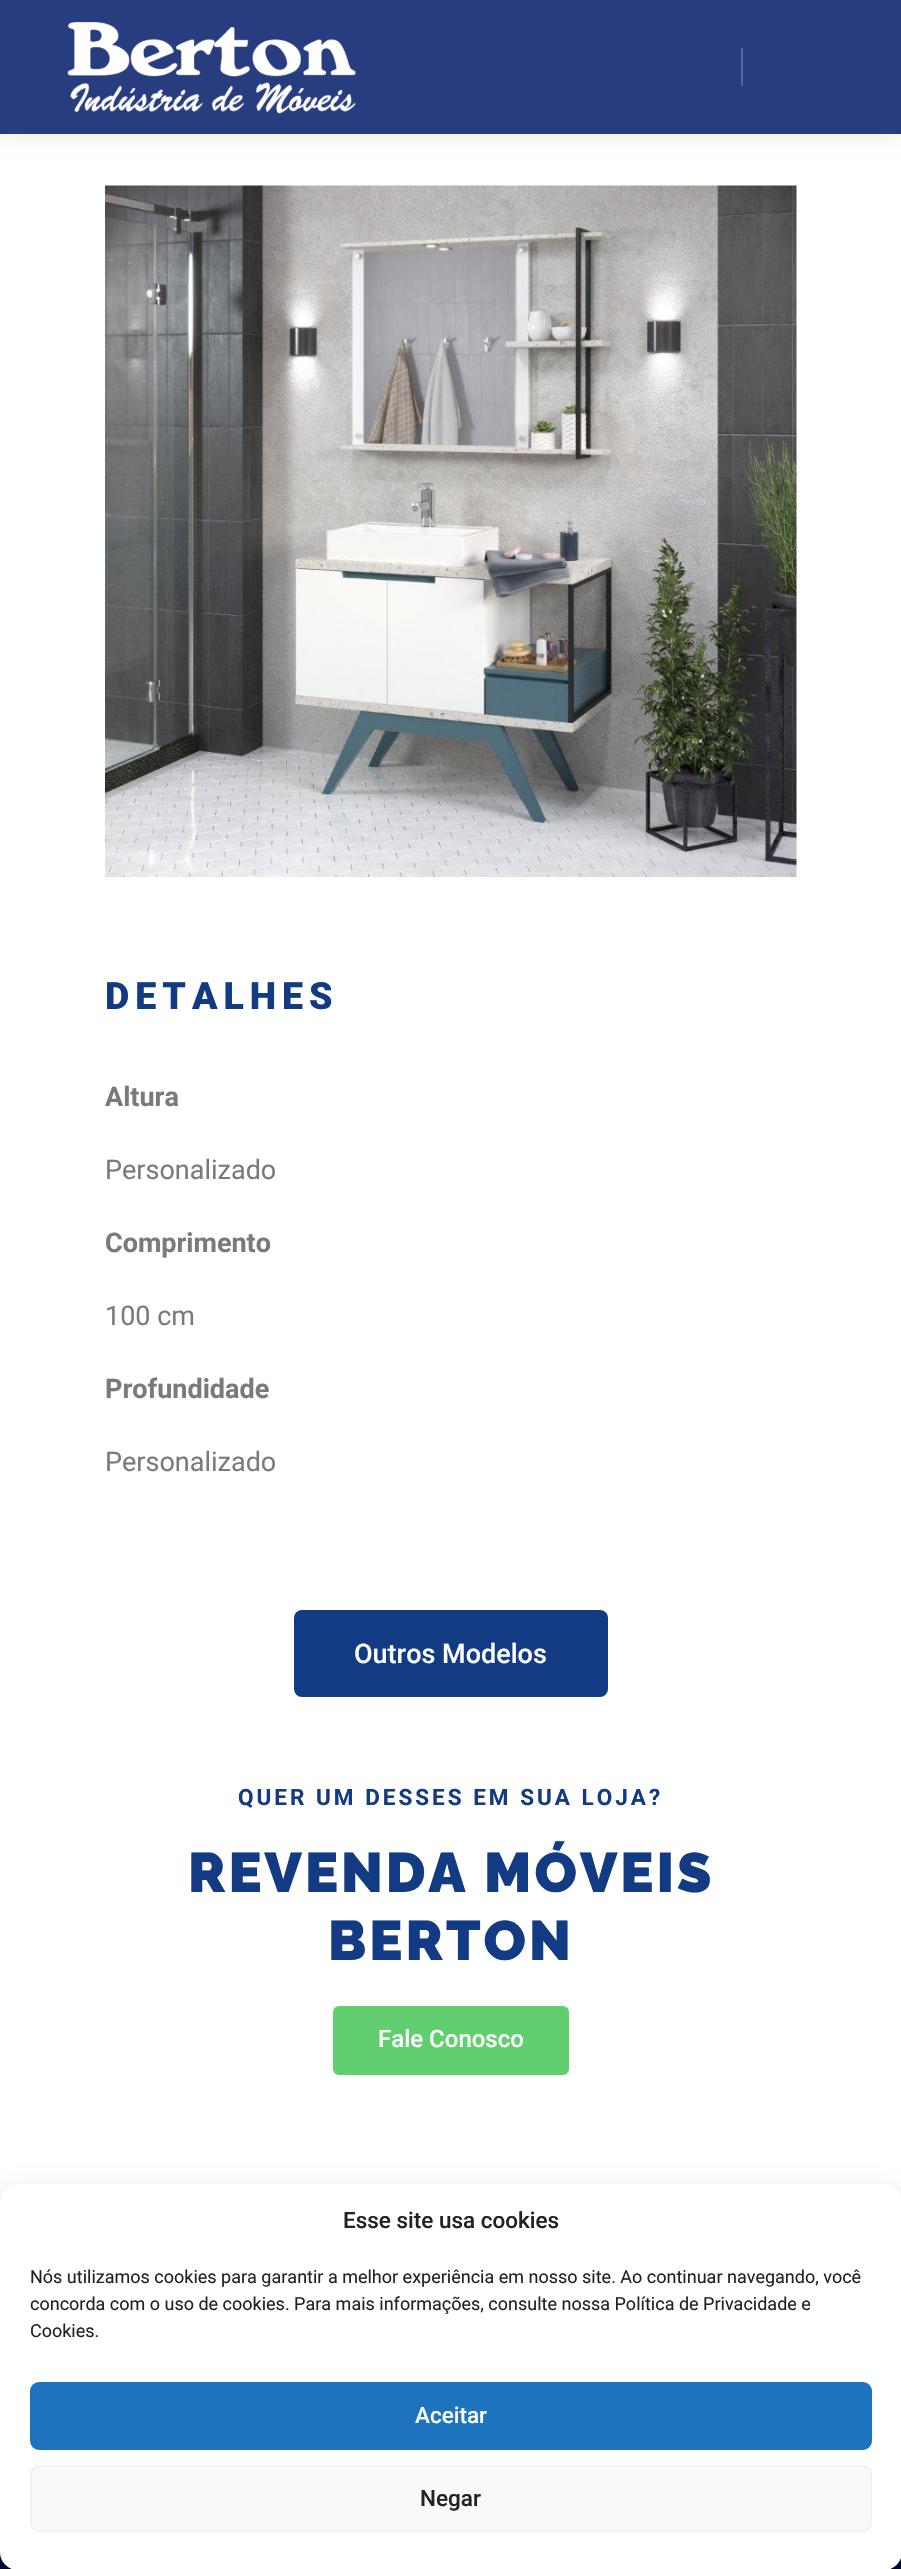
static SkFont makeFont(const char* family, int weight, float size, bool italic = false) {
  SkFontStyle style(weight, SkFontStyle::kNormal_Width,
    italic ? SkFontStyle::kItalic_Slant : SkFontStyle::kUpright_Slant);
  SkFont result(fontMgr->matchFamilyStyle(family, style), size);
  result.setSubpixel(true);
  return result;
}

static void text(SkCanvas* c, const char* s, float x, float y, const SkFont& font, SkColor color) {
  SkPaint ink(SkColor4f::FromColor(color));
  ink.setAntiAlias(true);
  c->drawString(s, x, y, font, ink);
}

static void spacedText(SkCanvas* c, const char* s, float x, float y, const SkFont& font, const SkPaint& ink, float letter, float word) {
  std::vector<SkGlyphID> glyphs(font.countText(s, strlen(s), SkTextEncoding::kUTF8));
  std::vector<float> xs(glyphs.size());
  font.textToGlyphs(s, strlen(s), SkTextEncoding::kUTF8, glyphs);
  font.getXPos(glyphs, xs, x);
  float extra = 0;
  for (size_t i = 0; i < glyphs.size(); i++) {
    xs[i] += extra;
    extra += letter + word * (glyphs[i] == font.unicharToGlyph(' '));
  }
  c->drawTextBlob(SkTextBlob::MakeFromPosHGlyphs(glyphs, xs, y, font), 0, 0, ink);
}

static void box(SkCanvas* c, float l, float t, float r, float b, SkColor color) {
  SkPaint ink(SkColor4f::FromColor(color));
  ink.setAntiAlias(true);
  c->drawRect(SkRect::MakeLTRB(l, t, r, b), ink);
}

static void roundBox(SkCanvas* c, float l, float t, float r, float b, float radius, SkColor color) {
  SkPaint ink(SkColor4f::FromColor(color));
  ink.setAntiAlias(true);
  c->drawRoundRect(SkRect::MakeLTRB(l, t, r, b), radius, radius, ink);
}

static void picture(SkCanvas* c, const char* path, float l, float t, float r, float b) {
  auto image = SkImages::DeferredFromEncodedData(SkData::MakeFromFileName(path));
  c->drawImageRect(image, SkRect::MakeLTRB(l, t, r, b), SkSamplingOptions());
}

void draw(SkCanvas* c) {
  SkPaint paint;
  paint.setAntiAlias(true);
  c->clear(0xffffffff);
  paint.setColor(0x17000000);
  paint.setMaskFilter(SkMaskFilter::MakeBlur(kNormal_SkBlurStyle, 9));
  c->drawRect(SkRect::MakeLTRB(0, 0, 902, 134), paint);
  paint.setMaskFilter(nullptr);
  box(c, 0, 0, 901, 134, 0xff283d80);
  picture(c, "img_01.png", 67, 22, 356, 114);
  box(c, 741, 48, 743, 86, 0xff536499);
  picture(c, "img_02.png", 105, 185, 797, 877);
  SkFont face1 = makeFont("Roboto", 900, 37.5f);
  paint.setColor(0xff133b83);
  spacedText(c, "DETALHES", 105, 1009, face1, paint, 6, 0);
  SkFont face2 = makeFont("Roboto", 700, 27);
  text(c, "Altura", 105, 1106, face2, 0xff7a7a7a);
  SkFont face3 = makeFont("Roboto", 400, 27);
  text(c, "Personalizado", 105, 1179, face3, 0xff7a7a7a);
  text(c, "Comprimento", 105, 1252, face2, 0xff7a7a7a);
  text(c, "100 cm", 105, 1325, face3, 0xff7a7a7a);
  text(c, "Profundidade", 105, 1398, face2, 0xff7a7a7a);
  text(c, "Personalizado", 105, 1471, face3, 0xff7a7a7a);
  roundBox(c, 294, 1610, 608, 1697, 8, 0xff133b83);
  SkFont face4 = makeFont("Roboto", 500, 27);
  text(c, "Outros Modelos", 354, 1663, face4, 0xffffffff);
  SkFont face5 = makeFont("Roboto", 700, 22.5f);
  spacedText(c, "QUER UM DESSES EM SUA LOJA?", 238, 1805, face5, paint, 3, 0);
  SkFont face6 = makeFont("Raleway", 900, 55.5f);
  spacedText(c, "REVENDA MÓVEIS", 188, 1892, face6, paint, 3, 0);
  spacedText(c, "BERTON", 328, 1960, face6, paint, 3, 0);
  roundBox(c, 333, 2006, 569, 2075, 6, 0xff61ce70);
  SkFont face7 = makeFont("Roboto", 500, 24);
  text(c, "Fale Conosco", 378, 2047, face7, 0xffffffff);
  box(c, 0, 2552, 901, 2569, 0xff000842);
  paint.setColor(0x3b000000);
  paint.setMaskFilter(SkMaskFilter::MakeBlur(kNormal_SkBlurStyle, 4.5f));
  c->drawRoundRect(SkRect::MakeLTRB(0, 2193, 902, 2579), 18, 18, paint);
  paint.setMaskFilter(nullptr);
  paint.setColor(0x30000000);
  paint.setMaskFilter(SkMaskFilter::MakeBlur(kNormal_SkBlurStyle, 15));
  c->drawRoundRect(SkRect::MakeLTRB(0, 2199, 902, 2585), 18, 18, paint);
  paint.setMaskFilter(nullptr);
  roundBox(c, 0, 2184, 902, 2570, 18, 0xffffffff);
  SkFont face8 = makeFont("Roboto", 500, 22.5f);
  text(c, "Esse site usa cookies", 343, 2228, face8, 0xff222222);
  SkFont face9 = makeFont("Roboto", 400, 18);
  text(c, "Nós utilizamos cookies para garantir a melhor experiência em nosso site. Ao continuar navegando, você", 30, 2283, face9, 0xff222222);
  text(c, "concorda com o uso de cookies. Para mais informações, consulte nossa Política de Privacidade e", 30, 2310, face9, 0xff222222);
  text(c, "Cookies.", 30, 2337, face9, 0xff222222);
  paint.setColor(0xff1e73be);
  c->drawRoundRect(SkRect::MakeLTRB(31, 2383, 871, 2449), 8, 8, paint);
  paint.setStyle(SkPaint::kStroke_Style);
  paint.setStrokeWidth(2);
  c->drawRoundRect(SkRect::MakeLTRB(31, 2383, 871, 2449), 8, 8, paint);
  text(c, "Aceitar", 415, 2423, face8, 0xffffffff);
  paint.setStyle(SkPaint::kFill_Style);
  paint.setColor(0xfff9f9f9);
  c->drawRoundRect(SkRect::MakeLTRB(31, 2466, 871, 2531), 8, 8, paint);
  paint.setStyle(SkPaint::kStroke_Style);
  paint.setColor(0xfff2f2f2);
  c->drawRoundRect(SkRect::MakeLTRB(31, 2466, 871, 2531), 8, 8, paint);
  text(c, "Negar", 420, 2506, face8, 0xff222222);
}
